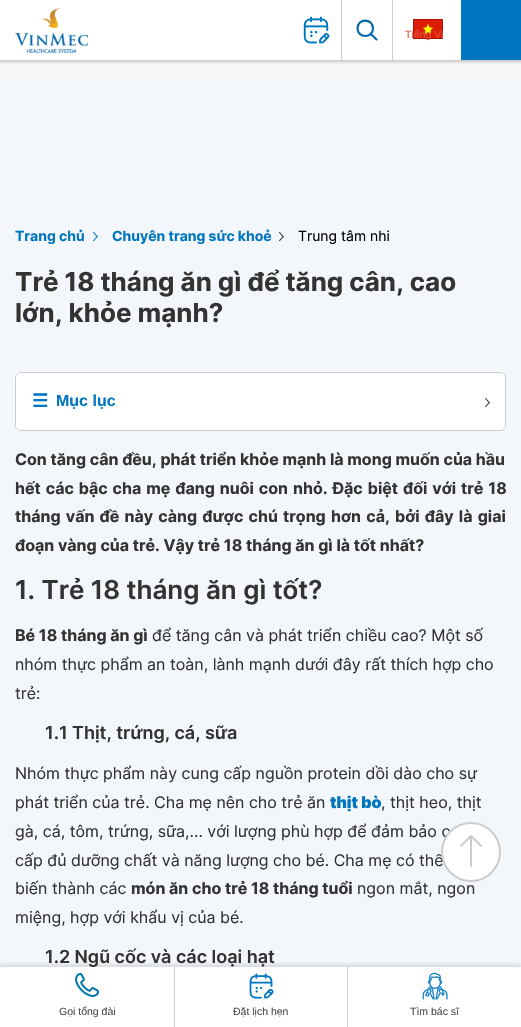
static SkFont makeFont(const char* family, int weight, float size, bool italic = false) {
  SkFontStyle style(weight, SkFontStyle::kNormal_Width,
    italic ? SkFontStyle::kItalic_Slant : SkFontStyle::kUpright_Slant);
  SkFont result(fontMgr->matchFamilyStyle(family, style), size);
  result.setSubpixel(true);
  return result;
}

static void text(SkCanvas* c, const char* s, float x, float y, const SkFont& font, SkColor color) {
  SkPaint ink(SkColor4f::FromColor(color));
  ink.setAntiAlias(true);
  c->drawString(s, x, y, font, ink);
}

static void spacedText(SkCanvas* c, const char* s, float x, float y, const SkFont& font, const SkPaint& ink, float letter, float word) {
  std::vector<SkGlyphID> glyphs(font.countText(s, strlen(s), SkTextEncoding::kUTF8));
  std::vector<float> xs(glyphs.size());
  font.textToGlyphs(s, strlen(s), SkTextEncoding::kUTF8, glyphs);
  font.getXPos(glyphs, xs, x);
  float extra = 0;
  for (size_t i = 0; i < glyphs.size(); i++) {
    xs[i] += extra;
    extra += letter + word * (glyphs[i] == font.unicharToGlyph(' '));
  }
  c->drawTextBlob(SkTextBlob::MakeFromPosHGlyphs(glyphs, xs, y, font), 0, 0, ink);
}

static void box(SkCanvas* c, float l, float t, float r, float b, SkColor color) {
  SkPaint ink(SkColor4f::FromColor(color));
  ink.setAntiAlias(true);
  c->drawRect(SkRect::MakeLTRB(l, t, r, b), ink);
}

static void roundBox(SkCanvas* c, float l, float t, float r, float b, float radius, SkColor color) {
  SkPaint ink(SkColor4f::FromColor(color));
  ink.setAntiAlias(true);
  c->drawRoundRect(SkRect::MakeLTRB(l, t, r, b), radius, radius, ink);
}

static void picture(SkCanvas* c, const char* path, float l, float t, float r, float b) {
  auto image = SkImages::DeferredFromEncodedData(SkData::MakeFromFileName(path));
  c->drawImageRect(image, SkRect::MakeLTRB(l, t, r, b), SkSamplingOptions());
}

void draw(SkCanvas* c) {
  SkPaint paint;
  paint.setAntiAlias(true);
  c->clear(0xfff7f7f7);
  box(c, 0, 0, 461, 60, 0xffffffff);
  box(c, 461, 0, 521, 60, 0xff0076c0);
  c->save();
  c->clipRect(SkRect::MakeLTRB(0, 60, 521, 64));
  paint.setColor(0x33000000);
  paint.setMaskFilter(SkMaskFilter::MakeBlur(kNormal_SkBlurStyle, 1.5f));
  c->drawRect(SkRect::MakeLTRB(-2, -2, 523, 62), paint);
  paint.setMaskFilter(nullptr);
  c->restore();
  picture(c, "img_01.png", 15, 8, 88, 53);
  picture(c, "img_02.png", 303, 16, 330, 44);
  box(c, 341, 0, 342, 60, 0xffcccccc);
  paint.setStyle(SkPaint::kStroke_Style);
  paint.setStrokeWidth(2.1f);
  paint.setStrokeCap(SkPaint::kRound_Cap);
  paint.setStrokeJoin(SkPaint::kRound_Join);
  paint.setColor(0xff0067ab);
  c->drawPath(SkPathBuilder().moveTo(371, 34).lineTo(376.5f, 39.5f).moveTo(373, 28.5f).cubicTo(373, 38.5f, 357.5f, 38.5f, 357.5f, 28.5f).cubicTo(357.5f, 18, 373, 18, 373, 28.5f).close().detach(), paint);
  box(c, 392, 0, 393, 60, 0xffcccccc);
  picture(c, "img_03.png", 413, 19, 443, 39);
  SkFont face1 = makeFont("Liberation Sans", 400, 10.5f);
  text(c, "Tiếng Vi", 405, 38, face1, 0xffe15740);
  box(c, 0, 80, 521, 967, 0xfff3f7fb);
  picture(c, "img_04.png", 93, 232, 98, 241);
  SkFont face2 = makeFont("Inter", 700, 14);
  text(c, "Trang chủ", 15, 241, face2, 0xff0076c0);
  picture(c, "img_05.png", 279, 232, 284, 241);
  text(c, "Chuyên trang sức khoẻ", 112, 241, face2, 0xff0076c0);
  SkFont face3 = makeFont("Inter", 400, 14);
  text(c, "Trung tâm nhi", 298, 241, face3, 0xff000000);
  SkFont face4 = makeFont("Inter", 700, 26);
  text(c, "Trẻ 18 tháng ăn gì để tăng cân, cao", 15, 291, face4, 0xff333333);
  text(c, "lớn, khỏe mạnh?", 15, 322, face4, 0xff333333);
  paint.setStrokeWidth(1);
  paint.setStrokeCap(SkPaint::kButt_Cap);
  paint.setStrokeJoin(SkPaint::kMiter_Join);
  paint.setColor(0xffcccccc);
  c->drawRoundRect(SkRect::MakeLTRB(15.5f, 372.5f, 505.5f, 430.5f), 5.5f, 5.5f, paint);
  roundBox(c, 16, 373, 505, 430, 5, 0xffffffff);
  SkFont face5 = makeFont("DejaVu Sans", 700, 18);
  text(c, "☰", 32, 407, face5, 0xff0076c0);
  SkFont face6 = makeFont("Liberation Sans", 700, 16);
  text(c, "Mục lục", 56, 406, face6, 0xff0076c0);
  picture(c, "img_06.png", 485, 398, 490, 407);
  SkFont face7 = makeFont("Inter", 700, 16);
  text(c, "Con tăng cân đều, phát triển khỏe mạnh là mong muốn của hầu", 15, 465, face7, 0xff333333);
  paint.setStyle(SkPaint::kFill_Style);
  paint.setColor(0xff333333);
  spacedText(c, "hết các bậc cha mẹ đang nuôi con nhỏ. Đặc biệt đối với trẻ 18", 15, 494, face7, paint, 0, 1.25f);
  spacedText(c, "tháng vấn đề này càng được chú trọng hơn cả, bởi đây là giai", 15, 522, face7, paint, 0, 1.5f);
  text(c, "đoạn vàng của trẻ. Vậy trẻ 18 tháng ăn gì là tốt nhất?", 15, 551, face7, 0xff333333);
  SkFont face8 = makeFont("Inter", 600, 26);
  text(c, "1. Trẻ 18 tháng ăn gì tốt?", 15, 599, face8, 0xff333333);
  text(c, "Bé 18 tháng ăn gì", 15, 641, face7, 0xff333333);
  SkFont face9 = makeFont("Inter", 400, 16);
  text(c, "để tăng cân và phát triển chiều cao? Một số", 152, 641, face9, 0xff333333);
  text(c, "nhóm thực phẩm an toàn, lành mạnh dưới đây rất thích hợp cho", 15, 670, face9, 0xff333333);
  text(c, "trẻ:", 15, 699, face9, 0xff333333);
  SkFont face10 = makeFont("Inter", 600, 18);
  text(c, "1.1 Thịt, trứng, cá, sữa", 45, 739, face10, 0xff333333);
  text(c, "Nhóm thực phẩm này cung cấp nguồn protein dồi dào cho sự", 15, 779, face9, 0xff333333);
  text(c, "phát triển của trẻ. Cha mẹ nên cho trẻ ăn", 15, 808, face9, 0xff333333);
  SkFont face11 = makeFont("Inter", 900, 16);
  text(c, "thịt bò", 330, 808, face11, 0xff0076c0);
  text(c, ", thịt heo, thịt", 381, 808, face9, 0xff333333);
  text(c, "gà, cá, tôm, trứng, sữa,... với lượng phù hợp để đảm bảo c", 15, 837, face9, 0xff333333);
  text(c, "cấp đủ dưỡng chất và năng lượng cho bé. Cha mẹ có thể", 15, 866, face9, 0xff333333);
  text(c, "biến thành các", 15, 894, face9, 0xff333333);
  text(c, "món ăn cho trẻ 18 tháng tuổi", 131, 894, face7, 0xff333333);
  text(c, "ngon mắt, ngon", 357, 894, face9, 0xff333333);
  text(c, "miệng, hợp với khẩu vị của bé.", 15, 923, face9, 0xff333333);
  text(c, "1.2 Ngũ cốc và các loại hạt", 45, 963, face10, 0xff333333);
  paint.setColor(0xffffffff);
  c->drawCircle(471, 852, 29, paint);
  paint.setStyle(SkPaint::kStroke_Style);
  paint.setStrokeWidth(2);
  paint.setColor(0xffcccccc);
  c->drawCircle(471, 852, 29, paint);
  picture(c, "img_07.png", 460, 835, 482, 867);
  paint.setStyle(SkPaint::kFill_Style);
  paint.setColor(0x1a000000);
  paint.setMaskFilter(SkMaskFilter::MakeBlur(kNormal_SkBlurStyle, 1.5f));
  c->drawRect(SkRect::MakeLTRB(0, 964, 521, 1024), paint);
  paint.setMaskFilter(nullptr);
  box(c, 0, 967, 521, 1027, 0xffffffff);
  picture(c, "img_08.png", 75, 973, 99, 997);
  text(c, "Gọi tổng đài", 59, 1015, face1, 0xff4d4c4c);
  box(c, 174, 967, 175, 1027, 0xffcccccc);
  picture(c, "img_09.png", 249, 973, 274, 999);
  text(c, "Đặt lịch hẹn", 233, 1015, face1, 0xff4d4c4c);
  box(c, 347, 967, 348, 1027, 0xffcccccc);
  picture(c, "img_10.png", 422, 972, 448, 1000);
  text(c, "Tìm bác sĩ", 410, 1015, face1, 0xff4d4c4c);
}
